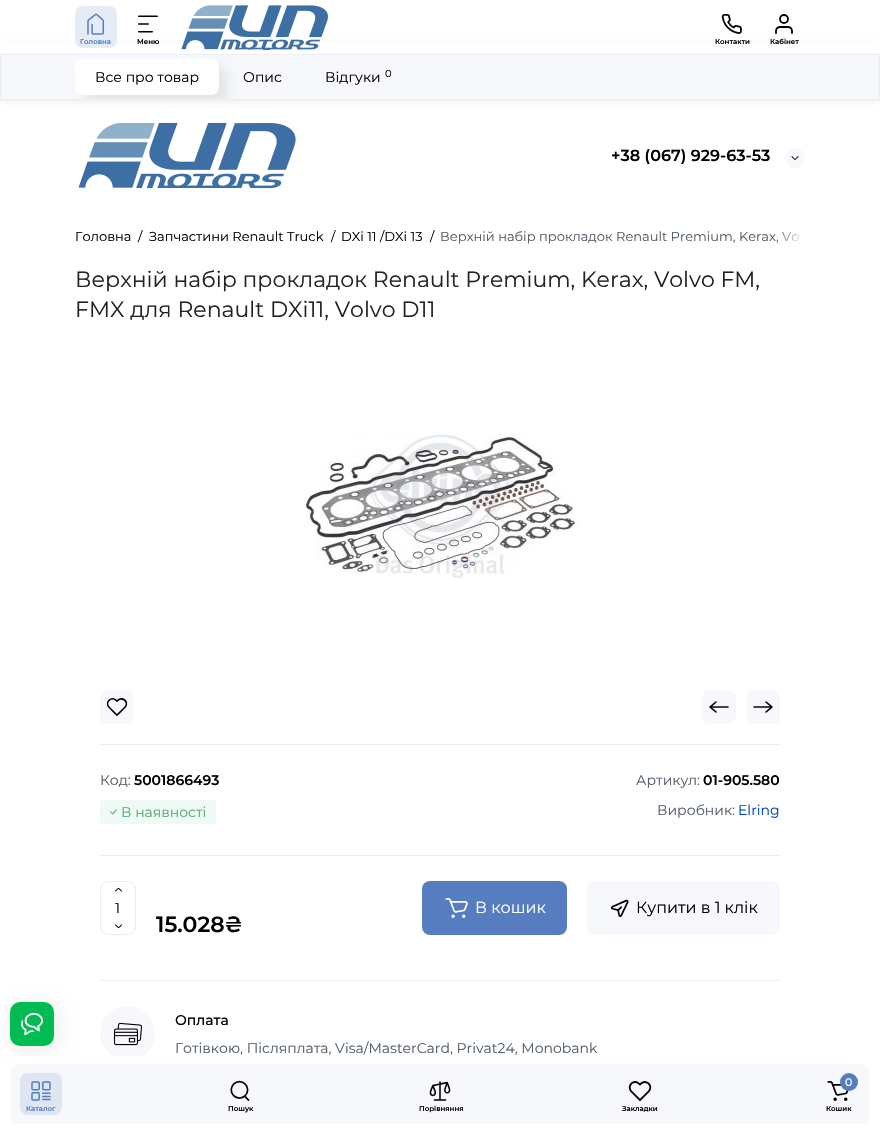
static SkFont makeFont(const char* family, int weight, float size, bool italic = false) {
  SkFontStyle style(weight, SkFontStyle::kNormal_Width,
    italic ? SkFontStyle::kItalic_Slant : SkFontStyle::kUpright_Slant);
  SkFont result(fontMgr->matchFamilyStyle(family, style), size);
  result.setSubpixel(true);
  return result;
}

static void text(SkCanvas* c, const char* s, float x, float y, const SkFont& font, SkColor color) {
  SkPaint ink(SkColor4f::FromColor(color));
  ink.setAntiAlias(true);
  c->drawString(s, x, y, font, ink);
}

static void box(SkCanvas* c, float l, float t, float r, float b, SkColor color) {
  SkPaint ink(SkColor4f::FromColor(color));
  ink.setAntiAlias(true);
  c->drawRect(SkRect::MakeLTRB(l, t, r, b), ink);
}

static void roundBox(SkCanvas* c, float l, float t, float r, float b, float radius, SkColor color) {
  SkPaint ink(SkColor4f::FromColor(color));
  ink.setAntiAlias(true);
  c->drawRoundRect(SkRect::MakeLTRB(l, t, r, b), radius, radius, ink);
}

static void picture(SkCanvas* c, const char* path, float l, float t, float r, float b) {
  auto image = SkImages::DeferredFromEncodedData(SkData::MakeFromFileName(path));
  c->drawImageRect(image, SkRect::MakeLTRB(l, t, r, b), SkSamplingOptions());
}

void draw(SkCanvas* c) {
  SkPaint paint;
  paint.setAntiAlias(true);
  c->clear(0xffffffff);
  paint.setColor(0x33000000);
  paint.setMaskFilter(SkMaskFilter::MakeBlur(kNormal_SkBlurStyle, 5));
  c->drawRect(SkRect::MakeLTRB(0, 51, 880, 97), paint);
  paint.setMaskFilter(nullptr);
  paint.setColor(0xfff7f8fb);
  c->drawRect(SkRect::MakeLTRB(0.5f, 54.5f, 879.5f, 99.5f), paint);
  paint.setStyle(SkPaint::kStroke_Style);
  paint.setStrokeWidth(1);
  paint.setColor(0xffeaedf7);
  c->drawRect(SkRect::MakeLTRB(0.5f, 54.5f, 879.5f, 99.5f), paint);
  c->save();
  c->clipRect(SkRect::MakeLTRB(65, 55, 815, 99));
  paint.setStyle(SkPaint::kFill_Style);
  paint.setColor(0x12000000);
  paint.setMaskFilter(SkMaskFilter::MakeBlur(kNormal_SkBlurStyle, 5));
  c->drawRoundRect(SkRect::MakeLTRB(84, 67, 228, 103), 8, 8, paint);
  paint.setMaskFilter(nullptr);
  c->restore();
  box(c, 0, 43, 880, 54, 0xffffffff);
  roundBox(c, 75, 6, 117, 48, 8, 0xffe6ecf6);
  picture(c, "img_01.png", 87, 13, 105, 35);
  SkFont face1 = makeFont("Montserrat", 600, 7);
  text(c, "Головна", 80, 44, face1, 0xff557dc0);
  picture(c, "img_02.png", 138, 15, 158, 33);
  text(c, "Меню", 137, 44, face1, 0xff000000);
  picture(c, "img_03.png", 181, 5, 328, 50);
  picture(c, "img_04.png", 721, 14, 742, 34);
  text(c, "Контакти", 715, 44, face1, 0xff000000);
  picture(c, "img_05.png", 775, 14, 793, 34);
  text(c, "Кабінет", 770, 44, face1, 0xff000000);
  picture(c, "img_06.png", 78, 122, 296, 189);
  SkFont face2 = makeFont("Montserrat", 600, 16);
  text(c, "+38 (067) 929-63-53", 611, 161, face2, 0xff000000);
  paint.setColor(0xfff7f8fb);
  c->drawCircle(795, 158, 10, paint);
  picture(c, "img_07.png", 791, 156, 799, 160);
  paint.setColor(0x14000000);
  paint.setMaskFilter(SkMaskFilter::MakeBlur(kNormal_SkBlurStyle, 9));
  c->drawRoundRect(SkRect::MakeLTRB(13, 1006, 57, 1050), 10, 10, paint);
  paint.setMaskFilter(nullptr);
  paint.setColor(0xfff7f8fb);
  c->drawCircle(127.5f, 1033.5f, 27.5f, paint);
  c->drawCircle(127.5f, 1108.5f, 27.5f, paint);
  box(c, 17, 1056, 155, 1132, 0xfaffffff);
  roundBox(c, 10, 1064, 870, 1124, 10, 0xfff7f8fb);
  roundBox(c, 20, 1073, 62, 1115, 8, 0xffdfe6f2);
  picture(c, "img_08.png", 31, 1081, 51, 1101);
  text(c, "Каталог", 26, 1111, face1, 0xff557dc0);
  picture(c, "img_09.png", 230, 1080, 250, 1101);
  text(c, "Пошук", 228, 1111, face1, 0xff000000);
  picture(c, "img_10.png", 429, 1081, 451, 1101);
  text(c, "Порівняння", 419, 1111, face1, 0xff000000);
  picture(c, "img_11.png", 628, 1081, 652, 1101);
  text(c, "Закладки", 622, 1111, face1, 0xff000000);
  picture(c, "img_12.png", 827, 1081, 849, 1101);
  paint.setColor(0xff557dc0);
  c->drawCircle(849, 1082, 9, paint);
  SkFont face3 = makeFont("Montserrat", 500, 11);
  text(c, "0", 845, 1086, face3, 0xffffffff);
  text(c, "Кошик", 826, 1111, face1, 0xff000000);
  roundBox(c, 10, 1002, 54, 1046, 10, 0xff00bc52);
  picture(c, "img_13.png", 21, 1013, 43, 1035);
  roundBox(c, 75, 59, 219, 95, 8, 0xffffffff);
  SkFont face4 = makeFont("Montserrat", 400, 14);
  text(c, "Відгуки", 325, 82, face4, 0xff000000);
  SkFont face5 = makeFont("Montserrat", 400, 10);
  text(c, "0", 385, 77, face5, 0xff000000);
  text(c, "Все про товар", 95, 82, face4, 0xff000000);
  text(c, "Опис", 243, 82, face4, 0xff000000);
  picture(c, "img_14.png", 303, 430, 580, 578);
  box(c, 100, 744, 780, 745, 0xffeaedf7);
  roundBox(c, 100, 690, 134, 724, 8, 0xfff7f8fb);
  picture(c, "img_15.png", 106, 698, 128, 716);
  roundBox(c, 702, 690, 736, 724, 8, 0xfff7f8fb);
  picture(c, "img_16.png", 709, 701, 729, 713);
  roundBox(c, 746, 690, 780, 724, 8, 0xfff7f8fb);
  picture(c, "img_17.png", 753, 701, 773, 713);
  box(c, 100, 855, 780, 856, 0xffeaedf7);
  text(c, "Код:", 100, 785, face4, 0xff535d67);
  SkFont face6 = makeFont("Montserrat", 600, 14);
  text(c, "5001866493", 134, 785, face6, 0xff000000);
  text(c, "Артикул:", 636, 785, face4, 0xff535d67);
  text(c, "01-905.580", 703, 785, face6, 0xff000000);
  roundBox(c, 100, 800, 216, 824, 4, 0xfff0faf4);
  picture(c, "img_18.png", 110, 809, 117, 815);
  text(c, "В наявності", 121, 817, face4, 0xff53a974);
  text(c, "Виробник:", 657, 815, face4, 0xff535d67);
  text(c, "Elring", 738, 815, face4, 0xff0045c0);
  box(c, 100, 980, 780, 981, 0xffeaedf7);
  paint.setColor(0xffeaedf7);
  c->drawPath(SkPathBuilder(SkPathFillType::kEvenOdd).moveTo(108, 881).lineTo(128, 881).cubicTo(132.5f, 881, 136, 884.5f, 136, 889).lineTo(136, 897).lineTo(100, 897).lineTo(100, 889).cubicTo(100, 884.5f, 103.5f, 881, 108, 881).close().moveTo(108, 882).lineTo(128, 882).cubicTo(132, 882, 135, 885, 135, 889).lineTo(135, 897).lineTo(101, 897).cubicTo(101, 891.5f, 99.5f, 882, 108, 882).close().detach(), paint);
  picture(c, "img_19.png", 115, 888, 122, 892);
  box(c, 135, 897, 136, 919, 0xffeaedf7);
  box(c, 100, 897, 101, 919, 0xffeaedf7);
  text(c, "1", 115, 913, face4, 0xff000000);
  c->drawPath(SkPathBuilder(SkPathFillType::kEvenOdd).moveTo(100, 919).lineTo(136, 919).lineTo(136, 928.5f).cubicTo(134, 937, 124, 935, 118, 935).cubicTo(111.5f, 935, 100, 937, 100, 927).close().moveTo(101, 919).lineTo(135, 919).lineTo(135, 927).cubicTo(135, 931, 132, 934, 128, 934).lineTo(108, 934).cubicTo(104, 934, 101, 931, 101, 927).close().detach(), paint);
  picture(c, "img_20.png", 115, 924, 122, 928);
  roundBox(c, 422, 881, 567, 935, 8, 0xff557dc0);
  picture(c, "img_21.png", 445, 898, 468, 918);
  SkFont face7 = makeFont("Montserrat", 400, 16);
  text(c, "В кошик", 475, 913, face7, 0xffffffff);
  roundBox(c, 587, 881, 780, 935, 8, 0xfff7f8fb);
  picture(c, "img_22.png", 610, 899, 629, 917);
  text(c, "Купити в 1 клік", 636, 913, face7, 0xff000000);
  SkFont face8 = makeFont("Montserrat", 600, 22);
  text(c, "15.028₴", 156, 932, face8, 0xff000000);
  picture(c, "img_23.png", 113, 1022, 142, 1046);
  SkFont face9 = makeFont("Montserrat", 500, 14);
  text(c, "Оплата", 175, 1025, face9, 0xff000000);
  text(c, "Готівкою, Післяплата, Visa/MasterCard, Privat24, Monobank", 175, 1053, face4, 0xff535d67);
  SkFont face10 = makeFont("Montserrat", 400, 13);
  text(c, "Головна", 75, 241, face10, 0xff000000);
  text(c, "/", 138, 241, face10, 0xff000000);
  text(c, "Запчастини Renault Truck", 149, 241, face10, 0xff000000);
  text(c, "/", 331, 241, face10, 0xff000000);
  text(c, "DXi 11 /DXi 13", 341, 241, face10, 0xff000000);
  text(c, "/", 430, 241, face10, 0xff000000);
  text(c, "Верхній набір прокладок Renault Premium, Kerax, Vo", 440, 241, face10, 0xff535d67);
  {
    const SkColor colors[] = {0x00ffffff, 0xffffffff};
    const float stops[] = {0, 1};
    const SkPoint ends[] = {{775, 236}, {805, 236}};
    paint.setShader(SkGradientShader::MakeLinear(ends, colors, stops, 2, SkTileMode::kClamp));
    paint.setAlpha(255);
  }
  c->drawRect(SkRect::MakeLTRB(777, 231, 800, 243), paint);
  SkFont face11 = makeFont("Montserrat", 400, 22);
  text(c, "Верхній набір прокладок Renault Premium, Kerax, Volvo FM,", 75, 287, face11, 0xff222222);
  text(c, "FMX для Renault DXi11, Volvo D11", 75, 317, face11, 0xff222222);
}
